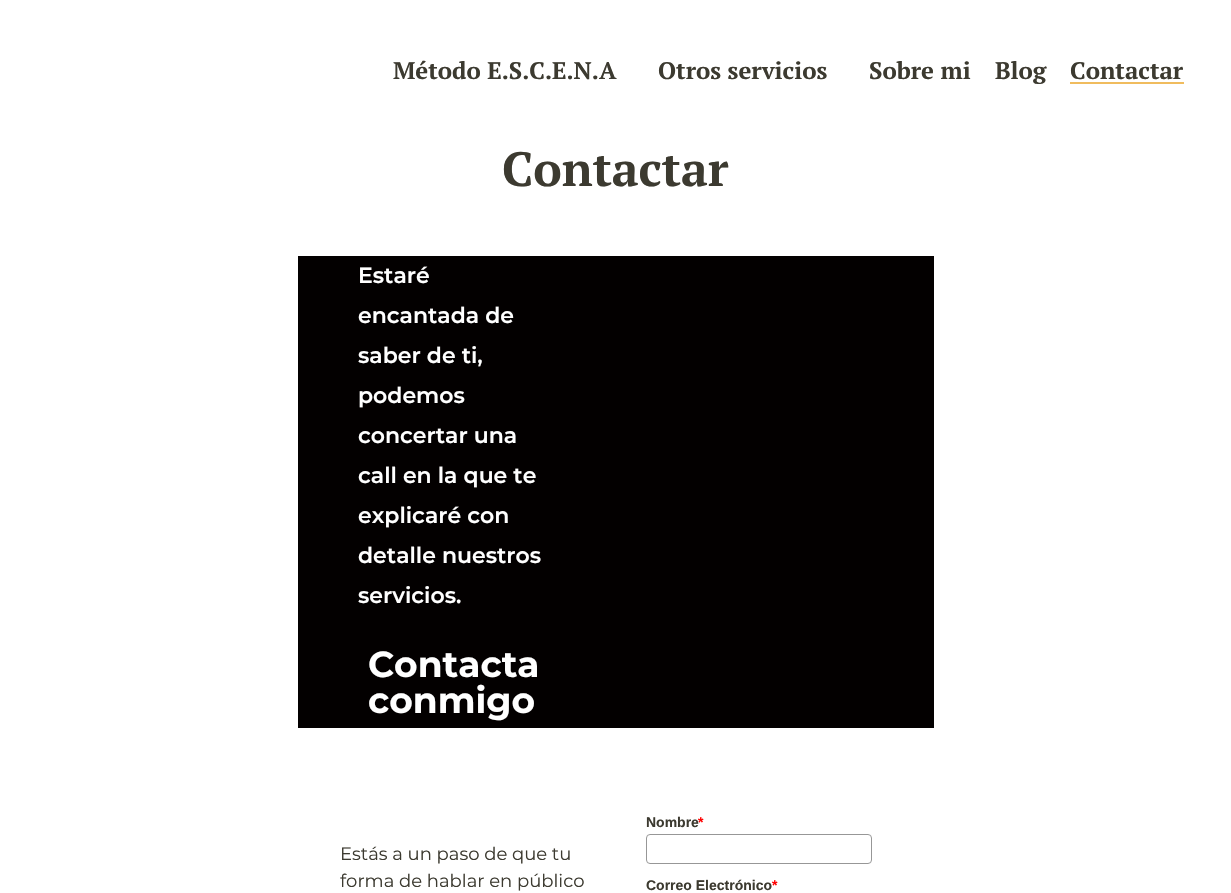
static SkFont makeFont(const char* family, int weight, float size, bool italic = false) {
  SkFontStyle style(weight, SkFontStyle::kNormal_Width,
    italic ? SkFontStyle::kItalic_Slant : SkFontStyle::kUpright_Slant);
  SkFont result(fontMgr->matchFamilyStyle(family, style), size);
  result.setSubpixel(true);
  return result;
}

static void text(SkCanvas* c, const char* s, float x, float y, const SkFont& font, SkColor color) {
  SkPaint ink(SkColor4f::FromColor(color));
  ink.setAntiAlias(true);
  c->drawString(s, x, y, font, ink);
}

static void box(SkCanvas* c, float l, float t, float r, float b, SkColor color) {
  SkPaint ink(SkColor4f::FromColor(color));
  ink.setAntiAlias(true);
  c->drawRect(SkRect::MakeLTRB(l, t, r, b), ink);
}

void draw(SkCanvas* c) {
  SkPaint paint;
  paint.setAntiAlias(true);
  c->clear(0xffffffff);
  SkFont face1 = makeFont("PT Serif", 700, 24);
  text(c, "Método E.S.C.E.N.A", 393, 79, face1, 0xff3c3a30);
  text(c, "Otros servicios", 658, 79, face1, 0xff3c3a30);
  text(c, "Sobre mi", 869, 79, face1, 0xff3c3a30);
  text(c, "Blog", 995, 79, face1, 0xff3c3a30);
  box(c, 1070, 82, 1184, 84, 0xfff0bc5e);
  text(c, "Contactar", 1070, 79, face1, 0xff3c3a30);
  SkFont face2 = makeFont("PT Serif", 700, 48);
  text(c, "Contactar", 502, 186, face2, 0xff3c3a30);
  box(c, 298, 256, 934, 728, 0xff030000);
  SkFont face3 = makeFont("Montserrat", 600, 22);
  text(c, "Estaré", 358, 283, face3, 0xffffffff);
  text(c, "encantada de", 358, 323, face3, 0xffffffff);
  text(c, "saber de ti,", 358, 363, face3, 0xffffffff);
  text(c, "podemos", 358, 403, face3, 0xffffffff);
  text(c, "concertar una", 358, 443, face3, 0xffffffff);
  text(c, "call en la que te", 358, 483, face3, 0xffffffff);
  text(c, "explicaré con", 358, 523, face3, 0xffffffff);
  text(c, "detalle nuestros", 358, 563, face3, 0xffffffff);
  text(c, "servicios.", 358, 603, face3, 0xffffffff);
  SkFont face4 = makeFont("Montserrat", 700, 36);
  text(c, "Contacta", 368, 677, face4, 0xffffffff);
  text(c, "conmigo", 368, 713, face4, 0xffffffff);
  SkFont face5 = makeFont("Montserrat", 400, 18);
  text(c, "Estás a un paso de que tu", 340, 860, face5, 0xff3c3a30);
  text(c, "forma de hablar en público", 340, 887, face5, 0xff3c3a30);
  SkFont face6 = makeFont("Liberation Sans", 700, 14);
  text(c, "Nombre", 646, 827, face6, 0xff3c3a30);
  text(c, "*", 698, 827, face6, 0xffff0000);
  paint.setStyle(SkPaint::kStroke_Style);
  paint.setStrokeWidth(1);
  paint.setColor(0xff979797);
  c->drawRoundRect(SkRect::MakeLTRB(646.5f, 834.5f, 871.5f, 863.5f), 3.5f, 3.5f, paint);
  text(c, "Correo Electrónico", 646, 890, face6, 0xff3c3a30);
  text(c, "*", 772, 890, face6, 0xffff0000);
}
